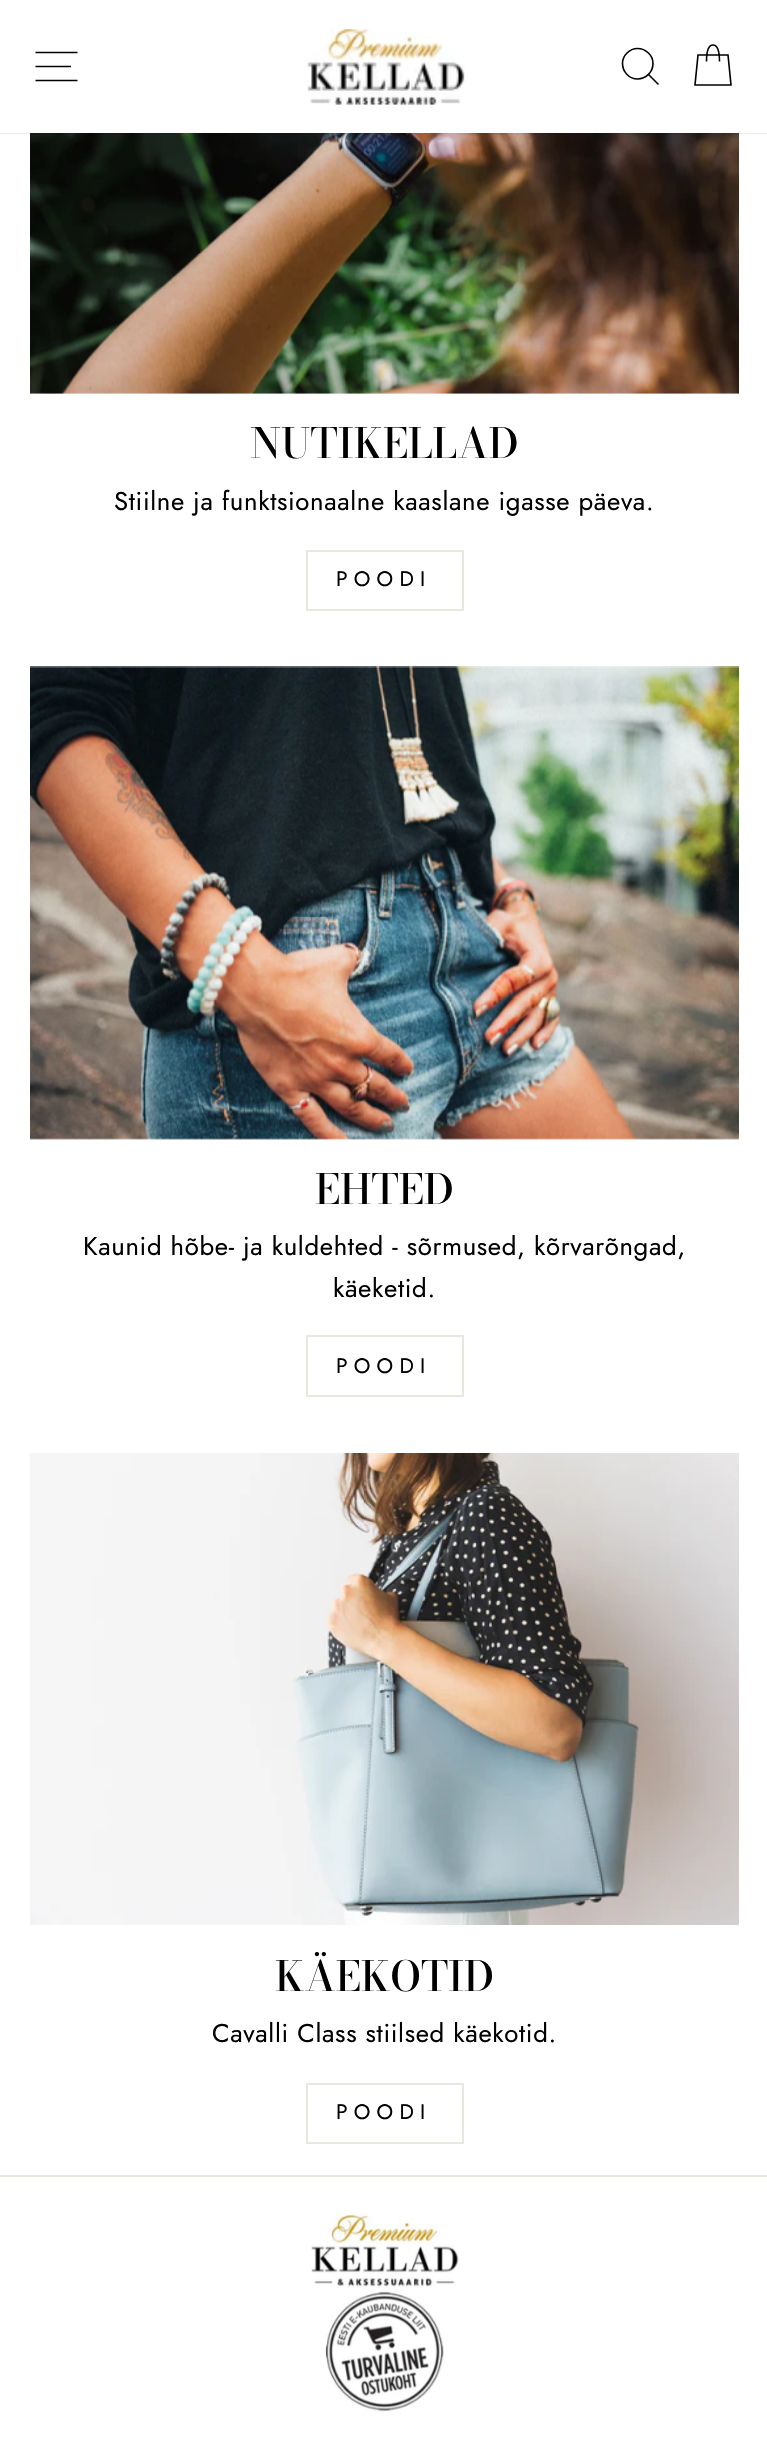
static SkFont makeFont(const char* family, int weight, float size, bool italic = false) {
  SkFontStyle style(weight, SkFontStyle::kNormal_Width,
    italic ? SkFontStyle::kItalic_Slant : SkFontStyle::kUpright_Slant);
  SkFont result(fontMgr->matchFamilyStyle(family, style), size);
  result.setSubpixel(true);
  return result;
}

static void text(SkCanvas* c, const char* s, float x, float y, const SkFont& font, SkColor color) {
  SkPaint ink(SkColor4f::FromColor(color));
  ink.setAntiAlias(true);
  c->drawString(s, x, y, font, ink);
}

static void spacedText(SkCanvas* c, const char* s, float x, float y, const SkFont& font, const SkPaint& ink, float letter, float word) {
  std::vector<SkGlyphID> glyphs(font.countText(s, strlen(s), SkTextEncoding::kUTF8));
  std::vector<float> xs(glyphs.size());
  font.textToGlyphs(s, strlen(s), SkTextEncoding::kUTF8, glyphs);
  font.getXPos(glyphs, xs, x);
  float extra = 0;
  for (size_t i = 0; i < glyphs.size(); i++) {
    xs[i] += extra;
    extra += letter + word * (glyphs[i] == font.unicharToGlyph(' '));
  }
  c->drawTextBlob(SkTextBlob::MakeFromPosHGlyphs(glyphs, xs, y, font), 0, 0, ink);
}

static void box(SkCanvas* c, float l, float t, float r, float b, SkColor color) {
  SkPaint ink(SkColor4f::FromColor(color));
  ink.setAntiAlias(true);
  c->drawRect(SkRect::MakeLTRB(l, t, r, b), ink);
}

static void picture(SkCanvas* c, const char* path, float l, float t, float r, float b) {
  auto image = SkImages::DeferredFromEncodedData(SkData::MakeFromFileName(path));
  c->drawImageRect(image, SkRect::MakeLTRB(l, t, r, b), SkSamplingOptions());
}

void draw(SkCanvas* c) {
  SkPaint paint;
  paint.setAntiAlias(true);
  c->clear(0xffffffff);
  picture(c, "img_02.png", 30, 133, 739, 394);
  paint.setColor(0x33000000);
  paint.setMaskFilter(SkMaskFilter::MakeBlur(kNormal_SkBlurStyle, 1));
  c->drawRect(SkRect::MakeLTRB(0, 0, 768, 133), paint);
  paint.setMaskFilter(nullptr);
  box(c, 0, 0, 767, 133, 0xffffffff);
  paint.setStyle(SkPaint::kStroke_Style);
  paint.setStrokeWidth(1.6f);
  paint.setColor(0xff000000);
  c->drawPath(SkPathBuilder().moveTo(35.5f, 52.5f).lineTo(77.5f, 52.5f).moveTo(35.5f, 66.5f).lineTo(71, 66.5f).moveTo(35.5f, 80.5f).lineTo(77.5f, 80.5f).detach(), paint);
  picture(c, "img_01.png", 307, 29, 465, 105);
  c->drawPath(SkPathBuilder().moveTo(653, 63.5f).cubicTo(653, 72, 646, 79, 637.5f, 79).cubicTo(629.5f, 79, 622.5f, 72, 622.5f, 63.5f).cubicTo(622.5f, 55.5f, 629.5f, 48.5f, 637.5f, 48.5f).cubicTo(646, 48.5f, 653, 55.5f, 653, 63.5f).close().moveTo(658.5f, 84.5f).lineTo(648.5f, 74.5f).detach(), paint);
  c->drawPath(SkPathBuilder().moveTo(706.5f, 61.5f).cubicTo(706.5f, 48.5f, 709.5f, 45, 713, 45).cubicTo(716.5f, 45, 719.5f, 48.5f, 719.5f, 61.5f).moveTo(698, 55).lineTo(728, 55).lineTo(731, 85).lineTo(695, 85).close().detach(), paint);
  SkFont face1 = makeFont("Bodoni Moda", 500, 41.25f);
  text(c, "NUTIKELLAD", 250, 458, face1, 0xff000000);
  SkFont face2 = makeFont("Jost", 400, 25.75f);
  paint.setStyle(SkPaint::kFill_Style);
  spacedText(c, "Stiilne ja funktsionaalne kaaslane igasse päeva.", 114, 510, face2, paint, 0.65f, 0);
  paint.setStyle(SkPaint::kStroke_Style);
  paint.setStrokeWidth(2);
  paint.setColor(0xffe8e8e1);
  c->drawRect(SkRect::MakeLTRB(307, 551, 463, 610), paint);
  SkFont face3 = makeFont("Jost", 400, 21);
  paint.setStyle(SkPaint::kFill_Style);
  paint.setColor(0xff000000);
  spacedText(c, "POODI", 336, 586, face3, paint, 6.25f, 0);
  picture(c, "img_03.png", 30, 666, 739, 1140);
  text(c, "EHTED", 315, 1204, face1, 0xff000000);
  spacedText(c, "Kaunid hõbe- ja kuldehted - sõrmused, kõrvarõngad,", 83, 1255, face2, paint, 0.65f, 0);
  spacedText(c, "käeketid.", 333, 1297, face2, paint, 0.65f, 0);
  paint.setStyle(SkPaint::kStroke_Style);
  paint.setColor(0xffe8e8e1);
  c->drawRect(SkRect::MakeLTRB(307, 1336, 463, 1396), paint);
  paint.setStyle(SkPaint::kFill_Style);
  paint.setColor(0xff000000);
  spacedText(c, "POODI", 336, 1373, face3, paint, 6.25f, 0);
  picture(c, "img_04.png", 30, 1453, 739, 1925);
  text(c, "KÄEKOTID", 275, 1991, face1, 0xff000000);
  spacedText(c, "Cavalli Class stiilsed käekotid.", 212, 2042, face2, paint, 0.65f, 0);
  paint.setStyle(SkPaint::kStroke_Style);
  paint.setColor(0xffe8e8e1);
  c->drawRect(SkRect::MakeLTRB(307, 2084, 463, 2143), paint);
  paint.setStyle(SkPaint::kFill_Style);
  paint.setColor(0xff000000);
  spacedText(c, "POODI", 336, 2119, face3, paint, 6.25f, 0);
  box(c, 0, 2175, 767, 2177, 0xffe8e8e1);
  picture(c, "img_05.png", 311, 2213, 459, 2412);
}
